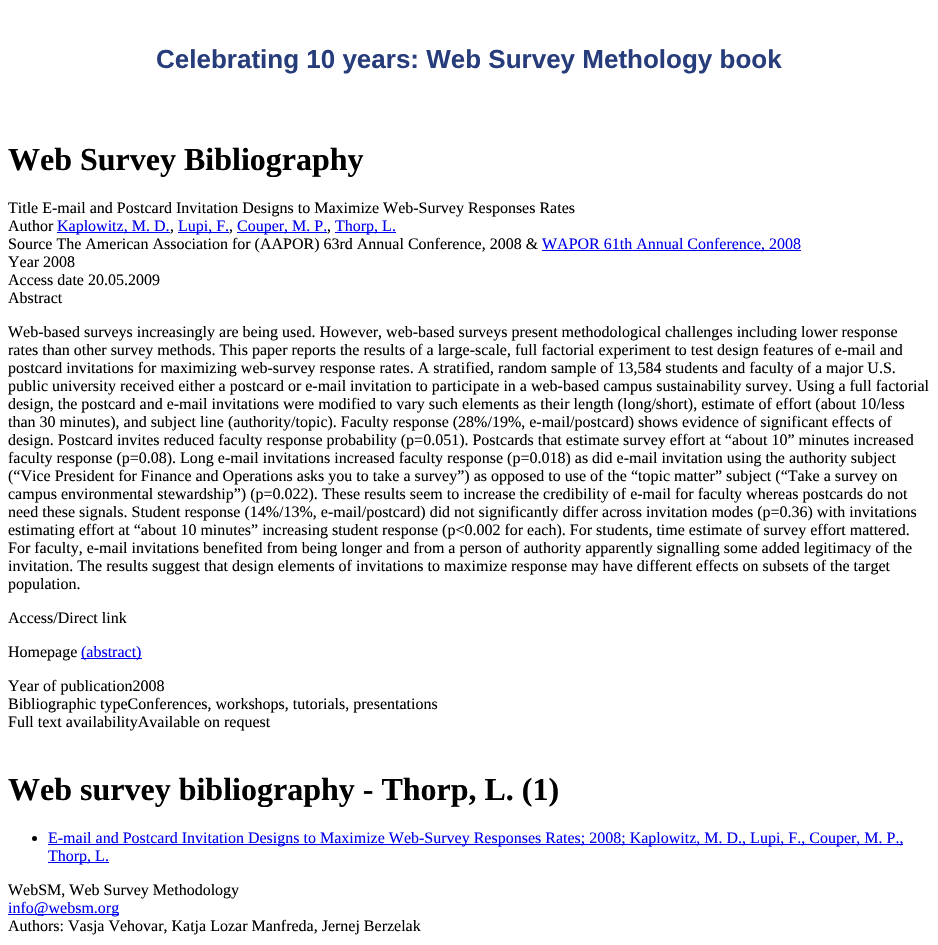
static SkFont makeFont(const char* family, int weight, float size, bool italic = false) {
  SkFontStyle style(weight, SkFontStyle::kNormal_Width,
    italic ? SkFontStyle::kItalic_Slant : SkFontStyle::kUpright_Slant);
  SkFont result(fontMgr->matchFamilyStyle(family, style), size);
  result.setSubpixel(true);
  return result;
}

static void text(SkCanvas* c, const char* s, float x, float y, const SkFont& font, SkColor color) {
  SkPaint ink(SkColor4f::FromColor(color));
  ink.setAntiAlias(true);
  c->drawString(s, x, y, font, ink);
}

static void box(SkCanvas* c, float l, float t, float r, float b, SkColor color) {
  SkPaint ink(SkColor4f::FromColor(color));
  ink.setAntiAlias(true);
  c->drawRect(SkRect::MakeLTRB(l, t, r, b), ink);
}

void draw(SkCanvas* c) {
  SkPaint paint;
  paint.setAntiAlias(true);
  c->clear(0xffffffff);
  SkFont face1 = makeFont("Liberation Sans", 700, 26);
  text(c, "Celebrating 10 years: Web Survey Methology book", 156, 68, face1, 0xff273c7a);
  SkFont face2 = makeFont("Liberation Serif", 700, 32);
  text(c, "Web Survey Bibliography", 8, 170, face2, 0xff000000);
  SkFont face3 = makeFont("Liberation Serif", 400, 16);
  text(c, "Title E-mail and Postcard Invitation Designs to Maximize Web-Survey Responses Rates", 8, 213, face3, 0xff000000);
  text(c, "Author", 8, 231, face3, 0xff000000);
  box(c, 57, 232, 170, 233, 0xff0000ee);
  text(c, "Kaplowitz, M. D.", 57, 231, face3, 0xff0000ee);
  text(c, ",", 170, 231, face3, 0xff000000);
  box(c, 178, 232, 229, 233, 0xff0000ee);
  text(c, "Lupi, F.", 178, 231, face3, 0xff0000ee);
  text(c, ",", 229, 231, face3, 0xff000000);
  box(c, 237, 232, 327, 233, 0xff0000ee);
  text(c, "Couper, M. P.", 237, 231, face3, 0xff0000ee);
  text(c, ",", 327, 231, face3, 0xff000000);
  box(c, 335, 232, 396, 233, 0xff0000ee);
  text(c, "Thorp, L.", 335, 231, face3, 0xff0000ee);
  text(c, "Source The American Association for (AAPOR) 63rd Annual Conference, 2008 &", 8, 249, face3, 0xff000000);
  box(c, 542, 250, 801, 251, 0xff0000ee);
  text(c, "WAPOR 61th Annual Conference, 2008", 542, 249, face3, 0xff0000ee);
  text(c, "Year 2008", 8, 267, face3, 0xff000000);
  text(c, "Access date 20.05.2009", 8, 285, face3, 0xff000000);
  text(c, "Abstract", 8, 303, face3, 0xff000000);
  text(c, "Web-based surveys increasingly are being used. However, web-based surveys present methodological challenges including lower response", 8, 337, face3, 0xff000000);
  text(c, "rates than other survey methods. This paper reports the results of a large-scale, full factorial experiment to test design features of e-mail and", 8, 355, face3, 0xff000000);
  text(c, "postcard invitations for maximizing web-survey response rates. A stratified, random sample of 13,584 students and faculty of a major U.S.", 8, 373, face3, 0xff000000);
  text(c, "public university received either a postcard or e-mail invitation to participate in a web-based campus sustainability survey. Using a full factorial", 8, 391, face3, 0xff000000);
  text(c, "design, the postcard and e-mail invitations were modified to vary such elements as their length (long/short), estimate of effort (about 10/less", 8, 409, face3, 0xff000000);
  text(c, "than 30 minutes), and subject line (authority/topic). Faculty response (28%/19%, e-mail/postcard) shows evidence of significant effects of", 8, 427, face3, 0xff000000);
  text(c, "design. Postcard invites reduced faculty response probability (p=0.051). Postcards that estimate survey effort at “about 10” minutes increased", 8, 445, face3, 0xff000000);
  text(c, "faculty response (p=0.08). Long e-mail invitations increased faculty response (p=0.018) as did e-mail invitation using the authority subject", 8, 463, face3, 0xff000000);
  text(c, "(“Vice President for Finance and Operations asks you to take a survey”) as opposed to use of the “topic matter” subject (“Take a survey on", 8, 481, face3, 0xff000000);
  text(c, "campus environmental stewardship”) (p=0.022). These results seem to increase the credibility of e-mail for faculty whereas postcards do not", 8, 499, face3, 0xff000000);
  text(c, "need these signals. Student response (14%/13%, e-mail/postcard) did not significantly differ across invitation modes (p=0.36) with invitations", 8, 517, face3, 0xff000000);
  text(c, "estimating effort at “about 10 minutes” increasing student response (p<0.002 for each). For students, time estimate of survey effort mattered.", 8, 535, face3, 0xff000000);
  text(c, "For faculty, e-mail invitations benefited from being longer and from a person of authority apparently signalling some added legitimacy of the", 8, 553, face3, 0xff000000);
  text(c, "invitation. The results suggest that design elements of invitations to maximize response may have different effects on subsets of the target", 8, 571, face3, 0xff000000);
  text(c, "population.", 8, 589, face3, 0xff000000);
  text(c, "Access/Direct link", 8, 623, face3, 0xff000000);
  text(c, "Homepage", 8, 657, face3, 0xff000000);
  box(c, 81, 658, 142, 659, 0xff0000ee);
  text(c, "(abstract)", 81, 657, face3, 0xff0000ee);
  text(c, "Year of publication2008", 8, 691, face3, 0xff000000);
  text(c, "Bibliographic typeConferences, workshops, tutorials, presentations", 8, 709, face3, 0xff000000);
  text(c, "Full text availabilityAvailable on request", 8, 727, face3, 0xff000000);
  text(c, "Web survey bibliography - Thorp, L. (1)", 8, 800, face2, 0xff000000);
  paint.setColor(0xff000000);
  c->drawCircle(34.5f, 838.5f, 2.5f, paint);
  box(c, 48, 844, 903, 845, 0xff0000ee);
  text(c, "E-mail and Postcard Invitation Designs to Maximize Web-Survey Responses Rates; 2008; Kaplowitz, M. D., Lupi, F., Couper, M. P.,", 48, 843, face3, 0xff0000ee);
  box(c, 48, 862, 109, 863, 0xff0000ee);
  text(c, "Thorp, L.", 48, 861, face3, 0xff0000ee);
  text(c, "WebSM, Web Survey Methodology", 8, 895, face3, 0xff000000);
  box(c, 8, 914, 119, 915, 0xff0000ee);
  text(c, "info@websm.org", 8, 913, face3, 0xff0000ee);
  text(c, "Authors: Vasja Vehovar, Katja Lozar Manfreda, Jernej Berzelak", 8, 931, face3, 0xff000000);
}
